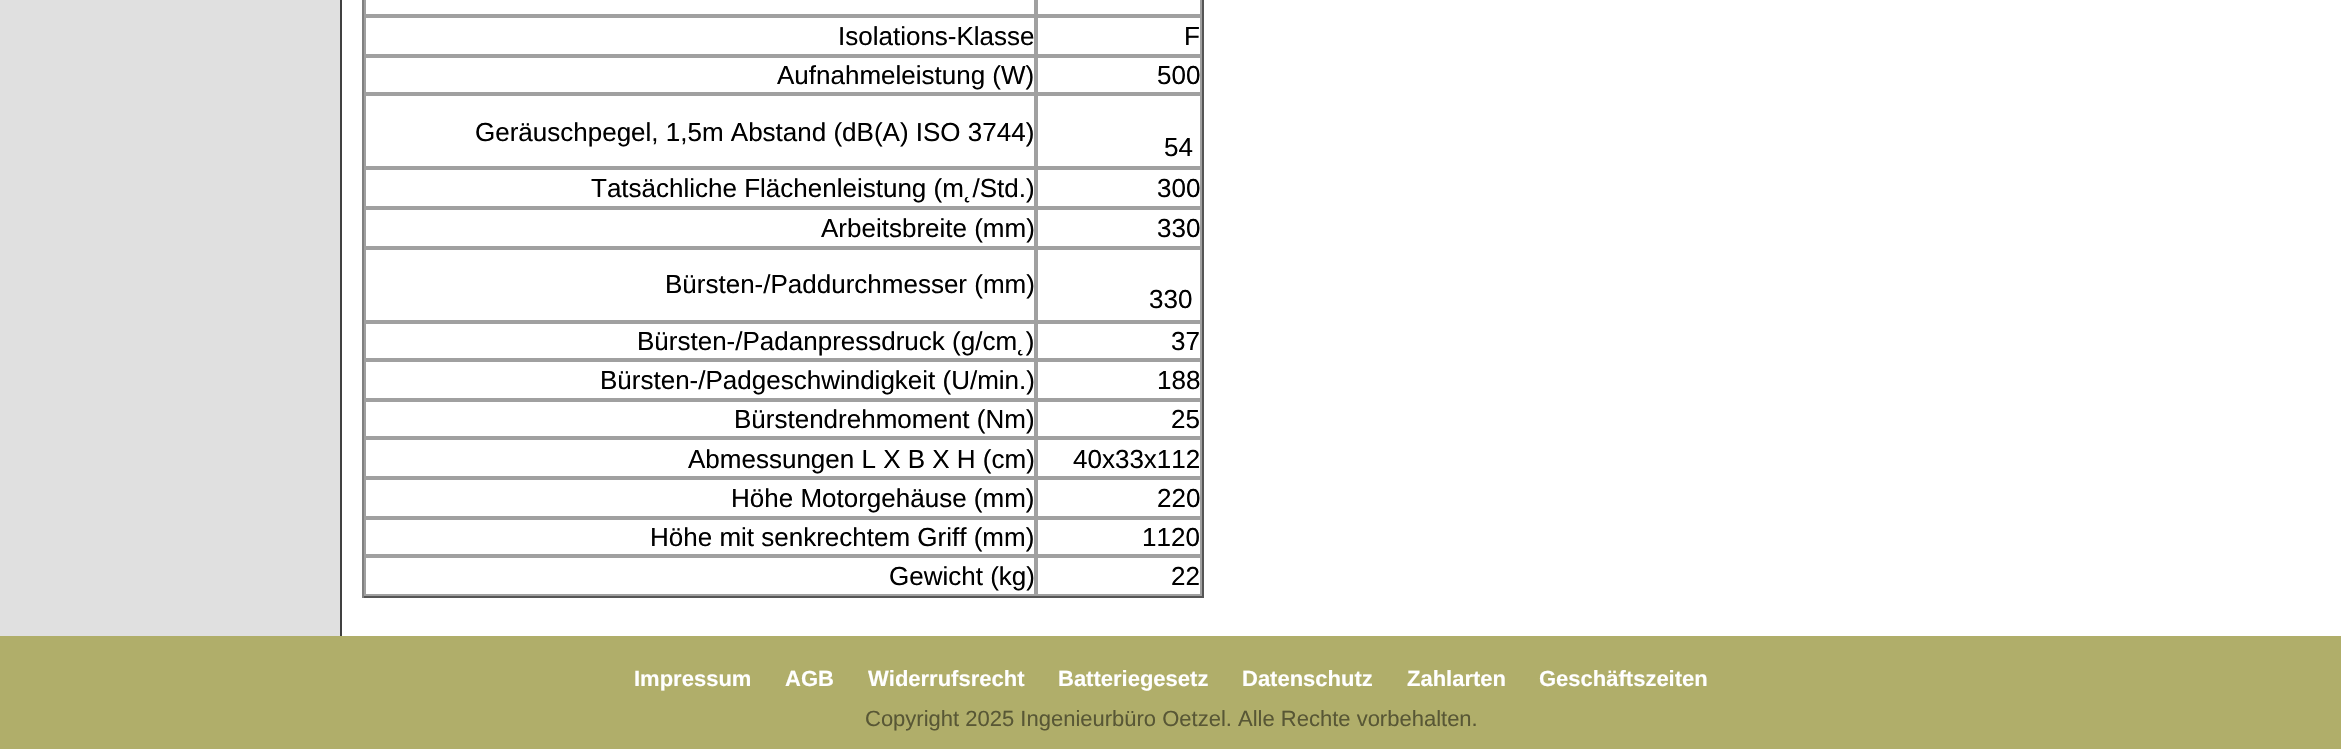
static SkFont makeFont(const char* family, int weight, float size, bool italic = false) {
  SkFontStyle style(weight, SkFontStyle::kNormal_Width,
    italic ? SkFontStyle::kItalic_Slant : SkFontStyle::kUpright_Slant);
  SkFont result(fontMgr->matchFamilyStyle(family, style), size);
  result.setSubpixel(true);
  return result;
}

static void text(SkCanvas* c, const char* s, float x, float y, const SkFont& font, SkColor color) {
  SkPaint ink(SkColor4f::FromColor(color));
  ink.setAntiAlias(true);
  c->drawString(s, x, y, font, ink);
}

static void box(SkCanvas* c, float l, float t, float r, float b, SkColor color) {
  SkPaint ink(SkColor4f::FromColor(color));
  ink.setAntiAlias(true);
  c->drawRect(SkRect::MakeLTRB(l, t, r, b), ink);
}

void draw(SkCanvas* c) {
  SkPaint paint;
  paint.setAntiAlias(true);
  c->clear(0xffffffff);
  box(c, 0, 0, 340, 636, 0xffe0e0e0);
  box(c, 340, 0, 342, 636, 0xff404040);
  box(c, 1202, 0, 1204, 598, 0xff555555);
  box(c, 362, 596, 1204, 598, 0xff555555);
  box(c, 362, 0, 364, 598, 0xff808080);
  paint.setStyle(SkPaint::kStroke_Style);
  paint.setStrokeWidth(2);
  paint.setColor(0xffa0a0a0);
  c->drawRect(SkRect::MakeLTRB(365, -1, 1035, 15), paint);
  c->drawRect(SkRect::MakeLTRB(1037, -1, 1201, 15), paint);
  c->drawRect(SkRect::MakeLTRB(365, 17, 1035, 55), paint);
  SkFont face1 = makeFont("Liberation Sans", 400, 26);
  text(c, "Isolations-Klasse", 838, 45, face1, 0xff000000);
  c->drawRect(SkRect::MakeLTRB(1037, 17, 1201, 55), paint);
  text(c, "F", 1184, 45, face1, 0xff000000);
  c->drawRect(SkRect::MakeLTRB(365, 57, 1035, 93), paint);
  text(c, "Aufnahmeleistung (W)", 777, 84, face1, 0xff000000);
  c->drawRect(SkRect::MakeLTRB(1037, 57, 1201, 93), paint);
  text(c, "500", 1157, 84, face1, 0xff000000);
  c->drawRect(SkRect::MakeLTRB(365, 95, 1035, 167), paint);
  text(c, "Geräuschpegel, 1,5m Abstand (dB(A) ISO 3744)", 475, 141, face1, 0xff000000);
  c->drawRect(SkRect::MakeLTRB(1037, 95, 1201, 167), paint);
  text(c, "54", 1164, 156, face1, 0xff000000);
  c->drawRect(SkRect::MakeLTRB(365, 169, 1035, 207), paint);
  text(c, "Tatsächliche Flächenleistung (m˛/Std.)", 591, 197, face1, 0xff000000);
  c->drawRect(SkRect::MakeLTRB(1037, 169, 1201, 207), paint);
  text(c, "300", 1157, 197, face1, 0xff000000);
  c->drawRect(SkRect::MakeLTRB(365, 209, 1035, 247), paint);
  text(c, "Arbeitsbreite (mm)", 821, 237, face1, 0xff000000);
  c->drawRect(SkRect::MakeLTRB(1037, 209, 1201, 247), paint);
  text(c, "330", 1157, 237, face1, 0xff000000);
  c->drawRect(SkRect::MakeLTRB(365, 249, 1035, 321), paint);
  text(c, "Bürsten-/Paddurchmesser (mm)", 665, 293, face1, 0xff000000);
  c->drawRect(SkRect::MakeLTRB(1037, 249, 1201, 321), paint);
  text(c, "330", 1149, 308, face1, 0xff000000);
  c->drawRect(SkRect::MakeLTRB(365, 323, 1035, 359), paint);
  text(c, "Bürsten-/Padanpressdruck (g/cm˛)", 637, 350, face1, 0xff000000);
  c->drawRect(SkRect::MakeLTRB(1037, 323, 1201, 359), paint);
  text(c, "37", 1171, 350, face1, 0xff000000);
  c->drawRect(SkRect::MakeLTRB(365, 361, 1035, 399), paint);
  text(c, "Bürsten-/Padgeschwindigkeit (U/min.)", 600, 389, face1, 0xff000000);
  c->drawRect(SkRect::MakeLTRB(1037, 361, 1201, 399), paint);
  text(c, "188", 1157, 389, face1, 0xff000000);
  c->drawRect(SkRect::MakeLTRB(365, 401, 1035, 437), paint);
  text(c, "Bürstendrehmoment (Nm)", 734, 428, face1, 0xff000000);
  c->drawRect(SkRect::MakeLTRB(1037, 401, 1201, 437), paint);
  text(c, "25", 1171, 428, face1, 0xff000000);
  c->drawRect(SkRect::MakeLTRB(365, 439, 1035, 477), paint);
  text(c, "Abmessungen L X B X H (cm)", 688, 468, face1, 0xff000000);
  c->drawRect(SkRect::MakeLTRB(1037, 439, 1201, 477), paint);
  text(c, "40x33x112", 1073, 468, face1, 0xff000000);
  c->drawRect(SkRect::MakeLTRB(365, 479, 1035, 517), paint);
  text(c, "Höhe Motorgehäuse (mm)", 731, 507, face1, 0xff000000);
  c->drawRect(SkRect::MakeLTRB(1037, 479, 1201, 517), paint);
  text(c, "220", 1157, 507, face1, 0xff000000);
  c->drawRect(SkRect::MakeLTRB(365, 519, 1035, 555), paint);
  text(c, "Höhe mit senkrechtem Griff (mm)", 650, 546, face1, 0xff000000);
  c->drawRect(SkRect::MakeLTRB(1037, 519, 1201, 555), paint);
  text(c, "1120", 1142, 546, face1, 0xff000000);
  c->drawRect(SkRect::MakeLTRB(365, 557, 1035, 595), paint);
  text(c, "Gewicht (kg)", 889, 585, face1, 0xff000000);
  c->drawRect(SkRect::MakeLTRB(1037, 557, 1201, 595), paint);
  text(c, "22", 1171, 585, face1, 0xff000000);
  box(c, 0, 636, 2341, 749, 0xffb0ae6a);
  SkFont face2 = makeFont("Liberation Sans", 700, 22);
  text(c, "Impressum", 634, 686, face2, 0xffffffff);
  text(c, "AGB", 785, 686, face2, 0xffffffff);
  text(c, "Widerrufsrecht", 868, 686, face2, 0xffffffff);
  text(c, "Batteriegesetz", 1058, 686, face2, 0xffffffff);
  text(c, "Datenschutz", 1242, 686, face2, 0xffffffff);
  text(c, "Zahlarten", 1407, 686, face2, 0xffffffff);
  text(c, "Geschäftszeiten", 1539, 686, face2, 0xffffffff);
  SkFont face3 = makeFont("Liberation Sans", 400, 22);
  text(c, "Copyright 2025 Ingenieurbüro Oetzel. Alle Rechte vorbehalten.", 865, 726, face3, 0xff585735);
}
